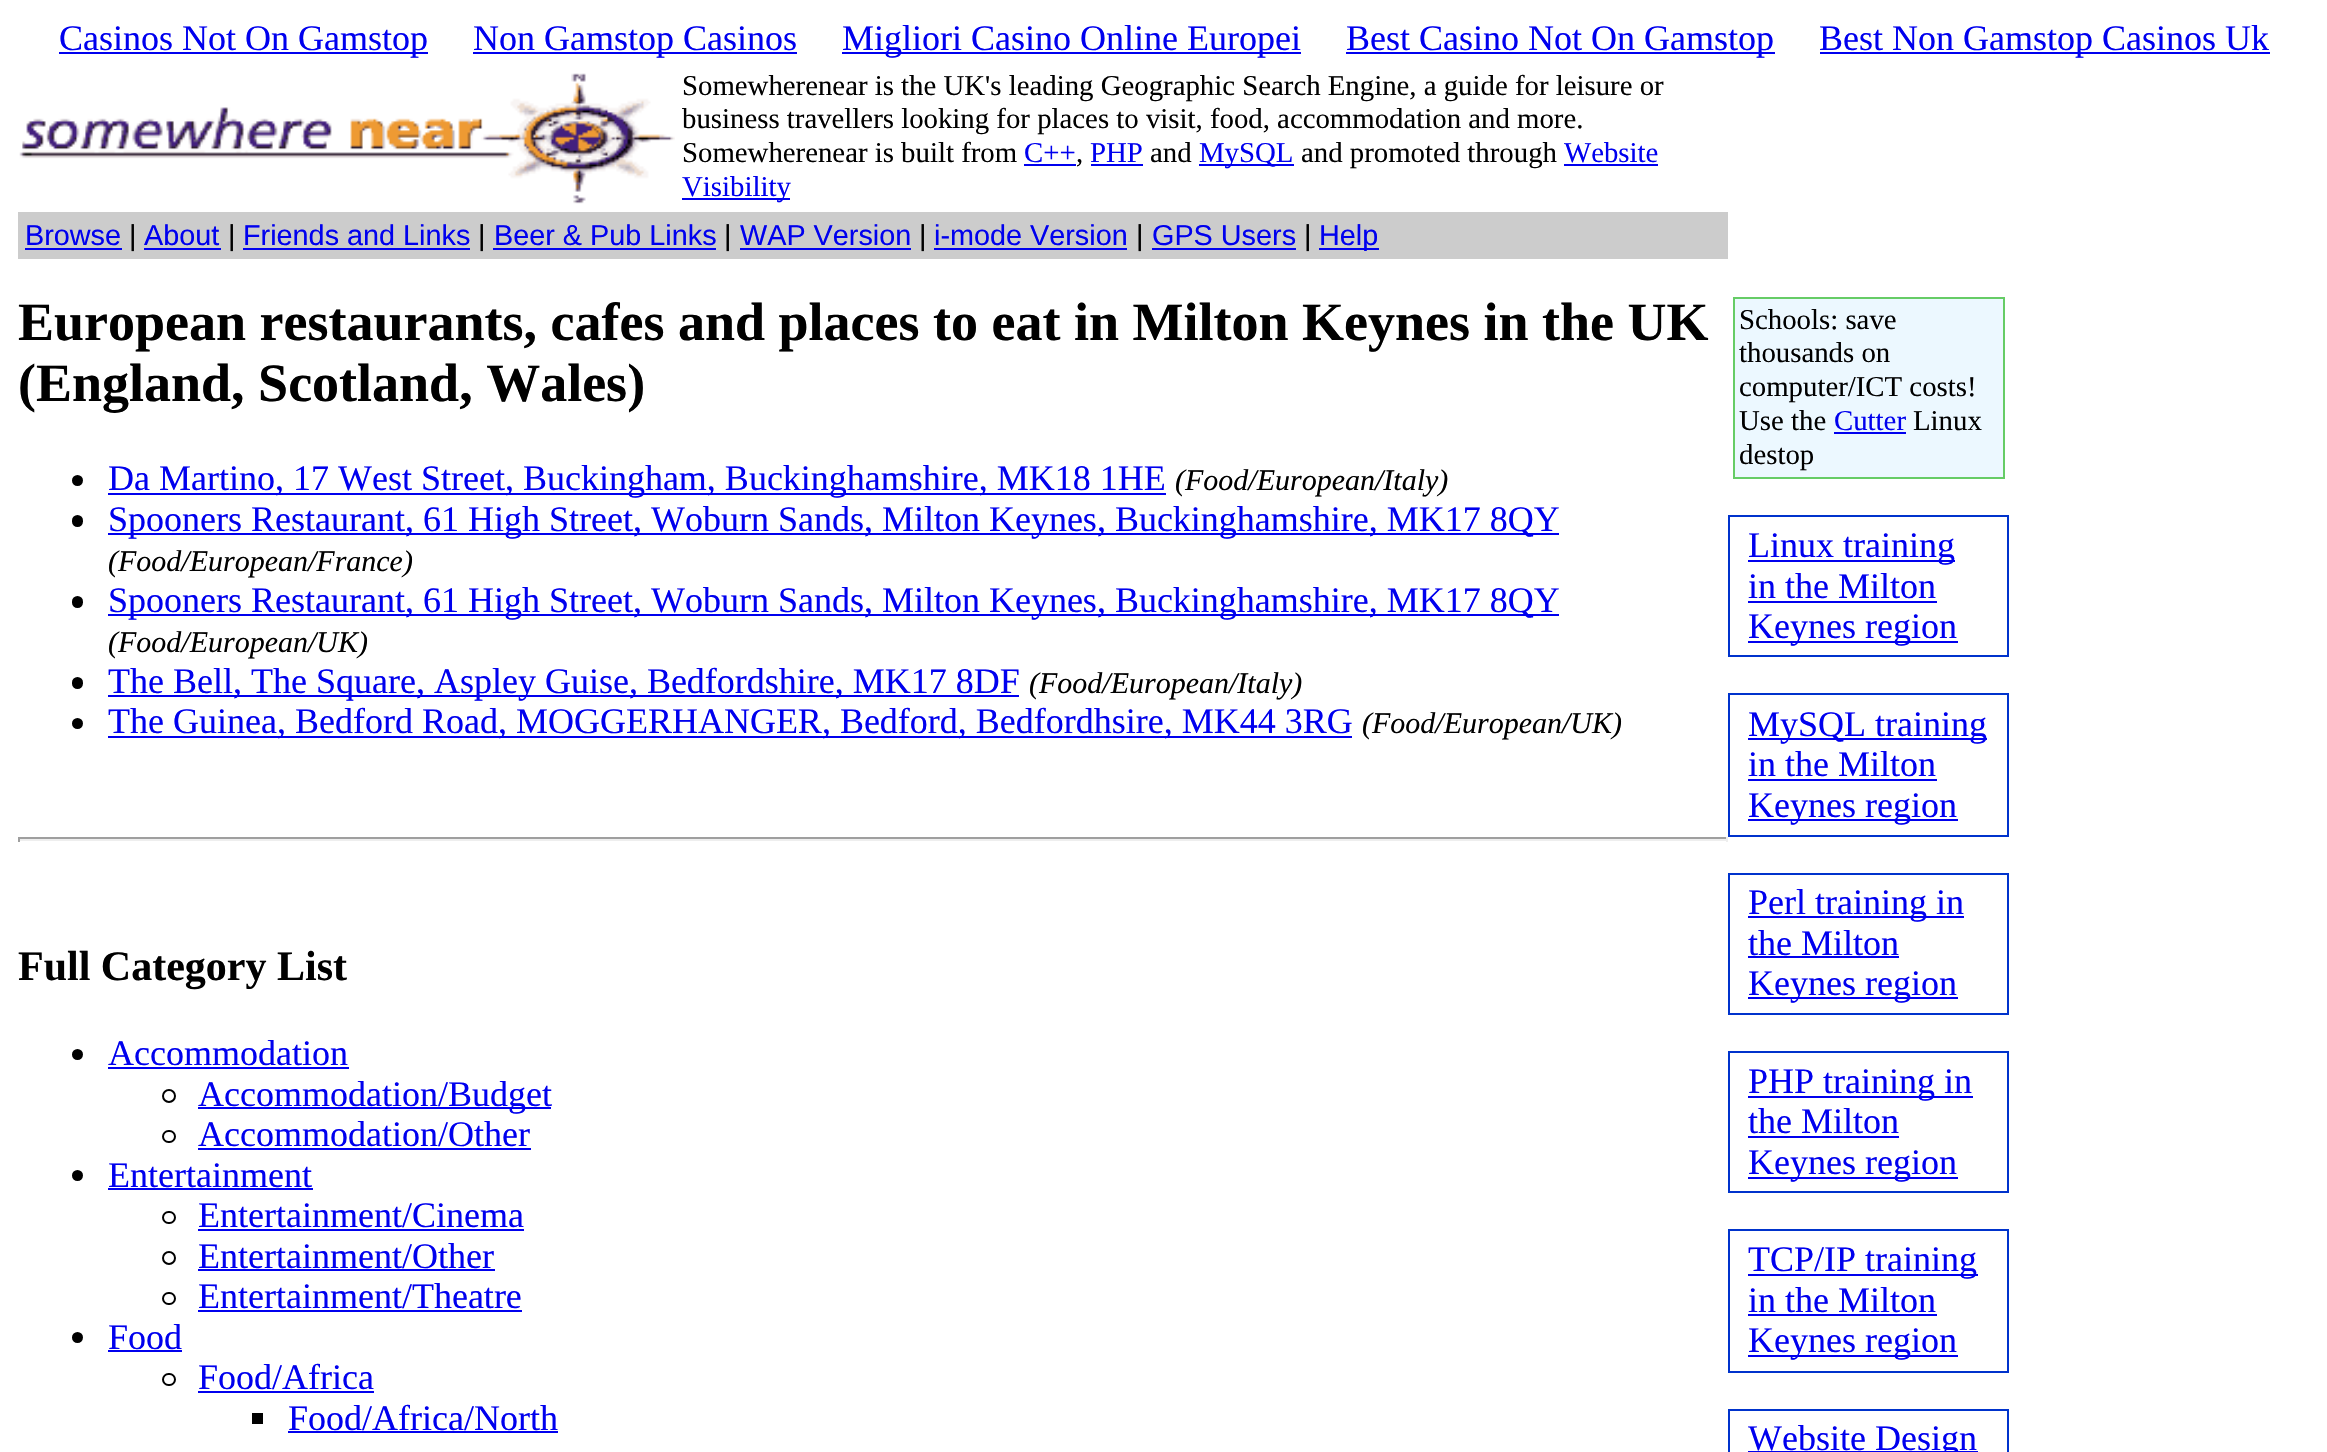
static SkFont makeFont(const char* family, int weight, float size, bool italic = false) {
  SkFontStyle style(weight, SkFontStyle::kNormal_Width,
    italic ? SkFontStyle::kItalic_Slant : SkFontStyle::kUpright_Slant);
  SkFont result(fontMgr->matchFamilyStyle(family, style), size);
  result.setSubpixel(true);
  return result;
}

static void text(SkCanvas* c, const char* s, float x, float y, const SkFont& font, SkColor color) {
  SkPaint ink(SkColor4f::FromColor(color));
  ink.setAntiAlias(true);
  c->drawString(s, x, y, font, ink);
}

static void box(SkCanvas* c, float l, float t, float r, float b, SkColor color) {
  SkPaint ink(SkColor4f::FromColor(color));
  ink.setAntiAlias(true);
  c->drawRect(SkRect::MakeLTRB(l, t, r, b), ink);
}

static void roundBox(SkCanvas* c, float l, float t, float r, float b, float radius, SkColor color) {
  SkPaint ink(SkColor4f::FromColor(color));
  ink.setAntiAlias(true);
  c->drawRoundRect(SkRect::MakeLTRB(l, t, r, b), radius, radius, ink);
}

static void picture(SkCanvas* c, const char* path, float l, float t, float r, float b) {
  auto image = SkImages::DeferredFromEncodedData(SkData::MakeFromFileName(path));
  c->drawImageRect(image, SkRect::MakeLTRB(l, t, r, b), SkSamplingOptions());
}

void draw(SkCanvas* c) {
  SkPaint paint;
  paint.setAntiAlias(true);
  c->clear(0xffffffff);
  box(c, 59, 52, 428, 54, 0xff0000ee);
  SkFont face1 = makeFont("Liberation Serif", 400, 36);
  text(c, "Casinos Not On Gamstop", 59, 50, face1, 0xff0000ee);
  box(c, 473, 52, 797, 54, 0xff0000ee);
  text(c, "Non Gamstop Casinos", 473, 50, face1, 0xff0000ee);
  box(c, 842, 52, 1301, 54, 0xff0000ee);
  text(c, "Migliori Casino Online Europei", 842, 50, face1, 0xff0000ee);
  box(c, 1346, 52, 1775, 54, 0xff0000ee);
  text(c, "Best Casino Not On Gamstop", 1346, 50, face1, 0xff0000ee);
  box(c, 1820, 52, 2270, 54, 0xff0000ee);
  text(c, "Best Non Gamstop Casinos Uk", 1819, 50, face1, 0xff0000ee);
  picture(c, "img_01.png", 19, 73, 675, 204);
  SkFont face2 = makeFont("Liberation Serif", 400, 28.8f);
  text(c, "Somewherenear is the UK's leading Geographic Search Engine, a guide for leisure or", 682, 95, face2, 0xff000000);
  text(c, "business travellers looking for places to visit, food, accommodation and more.", 682, 128, face2, 0xff000000);
  text(c, "Somewherenear is built from", 682, 162, face2, 0xff000000);
  text(c, "C++", 1024, 162, face2, 0xff0000ee);
  text(c, "PHP", 1090, 162, face2, 0xff0000ee);
  text(c, "and", 1150, 162, face2, 0xff000000);
  box(c, 1199, 164, 1294, 166, 0xff0000ee);
  text(c, "MySQL", 1199, 162, face2, 0xff0000ee);
  text(c, "and promoted through", 1301, 162, face2, 0xff000000);
  text(c, "Website", 1564, 162, face2, 0xff0000ee);
  box(c, 1564, 164, 1658, 166, 0xff0000ee);
  text(c, ",", 1076, 162, face2, 0xff000000);
  box(c, 1024, 164, 1076, 166, 0xff0000ee);
  box(c, 1091, 164, 1143, 166, 0xff0000ee);
  box(c, 682, 198, 790, 200, 0xff0000ee);
  text(c, "Visibility", 682, 196, face2, 0xff0000ee);
  box(c, 18, 212, 1728, 259, 0xffcccccc);
  SkFont face3 = makeFont("Liberation Sans", 400, 28.8f);
  text(c, "Browse", 25, 245, face3, 0xff0000ee);
  box(c, 25, 248, 122, 250, 0xff0000ee);
  text(c, "|", 129, 245, face3, 0xff000000);
  text(c, "About", 144, 245, face3, 0xff0000ee);
  box(c, 144, 248, 221, 250, 0xff0000ee);
  text(c, "|", 228, 245, face3, 0xff000000);
  text(c, "Friends and Links", 243, 245, face3, 0xff0000ee);
  box(c, 243, 248, 470, 250, 0xff0000ee);
  text(c, "|", 478, 245, face3, 0xff000000);
  text(c, "Beer & Pub Links", 494, 245, face3, 0xff0000ee);
  box(c, 493, 248, 716, 250, 0xff0000ee);
  text(c, "|", 724, 245, face3, 0xff000000);
  text(c, "WAP Version", 740, 245, face3, 0xff0000ee);
  box(c, 740, 248, 911, 250, 0xff0000ee);
  text(c, "|", 919, 245, face3, 0xff000000);
  text(c, "i-mode Version", 934, 245, face3, 0xff0000ee);
  box(c, 934, 248, 1127, 250, 0xff0000ee);
  text(c, "|", 1136, 245, face3, 0xff000000);
  text(c, "GPS Users", 1152, 245, face3, 0xff0000ee);
  box(c, 1152, 248, 1296, 250, 0xff0000ee);
  text(c, "|", 1304, 245, face3, 0xff000000);
  box(c, 1319, 248, 1379, 250, 0xff0000ee);
  text(c, "Help", 1319, 245, face3, 0xff0000ee);
  SkFont face4 = makeFont("Liberation Serif", 700, 54);
  text(c, "European restaurants, cafes and places to eat in Milton Keynes in the UK", 18, 340, face4, 0xff000000);
  text(c, "(England, Scotland, Wales)", 18, 401, face4, 0xff000000);
  paint.setColor(0xff000000);
  c->drawCircle(77.5f, 480.5f, 5.5f, paint);
  box(c, 108, 493, 1166, 495, 0xff0000ee);
  text(c, "Da Martino, 17 West Street, Buckingham, Buckinghamshire, MK18 1HE", 108, 490, face1, 0xff0000ee);
  SkFont face5 = makeFont("Liberation Serif", 400, 30, true);
  text(c, "(Food/European/Italy)", 1175, 490, face5, 0xff000000);
  roundBox(c, 72, 515, 83, 527, 5.5f, 0xff000000);
  box(c, 108, 533, 1559, 535, 0xff0000ee);
  text(c, "Spooners Restaurant, 61 High Street, Woburn Sands, Milton Keynes, Buckinghamshire, MK17 8QY", 108, 531, face1, 0xff0000ee);
  text(c, "(Food/European/France)", 108, 571, face5, 0xff000000);
  roundBox(c, 72, 596, 83, 608, 5.5f, 0xff000000);
  box(c, 108, 614, 1559, 616, 0xff0000ee);
  text(c, "Spooners Restaurant, 61 High Street, Woburn Sands, Milton Keynes, Buckinghamshire, MK17 8QY", 108, 612, face1, 0xff0000ee);
  text(c, "(Food/European/UK)", 108, 652, face5, 0xff000000);
  roundBox(c, 72, 677, 83, 689, 5.5f, 0xff000000);
  box(c, 108, 695, 1019, 697, 0xff0000ee);
  text(c, "The Bell, The Square, Aspley Guise, Bedfordshire, MK17 8DF", 108, 693, face1, 0xff0000ee);
  text(c, "(Food/European/Italy)", 1029, 693, face5, 0xff000000);
  c->drawCircle(77.5f, 723.5f, 5.5f, paint);
  box(c, 108, 736, 1352, 738, 0xff0000ee);
  text(c, "The Guinea, Bedford Road, MOGGERHANGER, Bedford, Bedfordhsire, MK44 3RG", 108, 733, face1, 0xff0000ee);
  text(c, "(Food/European/UK)", 1362, 733, face5, 0xff000000);
  box(c, 18, 837, 1728, 839, 0xff9f9f9f);
  box(c, 1726, 837, 1728, 842, 0xffeeeeee);
  box(c, 18, 839, 1728, 841, 0xffeeeeee);
  box(c, 18, 837, 20, 842, 0xff9f9f9f);
  SkFont face6 = makeFont("Liberation Serif", 700, 42);
  text(c, "Full Category List", 18, 980, face6, 0xff000000);
  c->drawCircle(77.5f, 1054.5f, 5.5f, paint);
  text(c, "Accommodation", 108, 1065, face1, 0xff0000ee);
  box(c, 108, 1067, 349, 1069, 0xff0000ee);
  paint.setStyle(SkPaint::kStroke_Style);
  paint.setStrokeWidth(2);
  c->drawCircle(169, 1096, 6, paint);
  box(c, 198, 1107, 551, 1109, 0xff0000ee);
  text(c, "Accommodation/Budget", 198, 1106, face1, 0xff0000ee);
  c->drawRoundRect(SkRect::MakeLTRB(163, 1131, 175, 1142), 5.5f, 5.5f, paint);
  text(c, "Accommodation/Other", 198, 1146, face1, 0xff0000ee);
  box(c, 198, 1148, 531, 1150, 0xff0000ee);
  paint.setStyle(SkPaint::kFill_Style);
  c->drawCircle(77.5f, 1175.5f, 5.5f, paint);
  text(c, "Entertainment", 108, 1187, face1, 0xff0000ee);
  box(c, 108, 1188, 313, 1190, 0xff0000ee);
  paint.setStyle(SkPaint::kStroke_Style);
  c->drawRoundRect(SkRect::MakeLTRB(163, 1212, 175, 1223), 5.5f, 5.5f, paint);
  text(c, "Entertainment/Cinema", 198, 1227, face1, 0xff0000ee);
  box(c, 198, 1229, 524, 1231, 0xff0000ee);
  c->drawCircle(169, 1258, 6, paint);
  text(c, "Entertainment/Other", 198, 1268, face1, 0xff0000ee);
  box(c, 198, 1269, 495, 1271, 0xff0000ee);
  c->drawRoundRect(SkRect::MakeLTRB(163, 1293, 175, 1304), 5.5f, 5.5f, paint);
  text(c, "Entertainment/Theatre", 198, 1308, face1, 0xff0000ee);
  box(c, 198, 1310, 522, 1312, 0xff0000ee);
  paint.setStyle(SkPaint::kFill_Style);
  c->drawCircle(77.5f, 1337.5f, 5.5f, paint);
  text(c, "Food", 108, 1349, face1, 0xff0000ee);
  box(c, 108, 1350, 182, 1352, 0xff0000ee);
  paint.setStyle(SkPaint::kStroke_Style);
  c->drawRoundRect(SkRect::MakeLTRB(163, 1374, 175, 1385), 5.5f, 5.5f, paint);
  text(c, "Food/Africa", 198, 1389, face1, 0xff0000ee);
  box(c, 198, 1391, 374, 1393, 0xff0000ee);
  box(c, 252, 1413, 263, 1424, 0xff000000);
  text(c, "Food/Africa/North", 288, 1430, face1, 0xff0000ee);
  box(c, 288, 1431, 558, 1433, 0xff0000ee);
  paint.setStyle(SkPaint::kFill_Style);
  paint.setColor(0xffecf8ff);
  c->drawRect(SkRect::MakeLTRB(1734, 298, 2004, 478), paint);
  paint.setStyle(SkPaint::kStroke_Style);
  paint.setColor(0xff66cc66);
  c->drawRect(SkRect::MakeLTRB(1734, 298, 2004, 478), paint);
  text(c, "Schools: save", 1739, 329, face2, 0xff000000);
  text(c, "thousands on", 1739, 362, face2, 0xff000000);
  text(c, "computer/ICT costs!", 1739, 396, face2, 0xff000000);
  text(c, "Use the", 1739, 430, face2, 0xff000000);
  text(c, "Cutter", 1834, 430, face2, 0xff0000ee);
  box(c, 1834, 432, 1906, 434, 0xff0000ee);
  text(c, "Linux", 1913, 430, face2, 0xff000000);
  text(c, "destop", 1739, 464, face2, 0xff000000);
  paint.setColor(0xff0033cc);
  c->drawRect(SkRect::MakeLTRB(1729, 516, 2008, 656), paint);
  box(c, 1748, 560, 1955, 562, 0xff0000ee);
  text(c, "Linux training", 1748, 557, face1, 0xff0000ee);
  text(c, "in the Milton", 1748, 598, face1, 0xff0000ee);
  box(c, 1748, 601, 1937, 603, 0xff0000ee);
  box(c, 1748, 641, 1958, 643, 0xff0000ee);
  text(c, "Keynes region", 1748, 638, face1, 0xff0000ee);
  c->drawRect(SkRect::MakeLTRB(1729, 694, 2008, 836), paint);
  box(c, 1748, 738, 1987, 740, 0xff0000ee);
  text(c, "MySQL training", 1748, 736, face1, 0xff0000ee);
  text(c, "in the Milton", 1748, 776, face1, 0xff0000ee);
  box(c, 1748, 779, 1937, 781, 0xff0000ee);
  box(c, 1748, 819, 1958, 821, 0xff0000ee);
  text(c, "Keynes region", 1748, 817, face1, 0xff0000ee);
  c->drawRect(SkRect::MakeLTRB(1729, 874, 2008, 1014), paint);
  box(c, 1748, 916, 1964, 918, 0xff0000ee);
  text(c, "Perl training in", 1748, 914, face1, 0xff0000ee);
  text(c, "the Milton", 1748, 955, face1, 0xff0000ee);
  box(c, 1748, 956, 1899, 958, 0xff0000ee);
  box(c, 1748, 997, 1958, 999, 0xff0000ee);
  text(c, "Keynes region", 1748, 995, face1, 0xff0000ee);
  c->drawRect(SkRect::MakeLTRB(1729, 1052, 2008, 1192), paint);
  box(c, 1748, 1096, 1973, 1098, 0xff0000ee);
  text(c, "PHP training in", 1748, 1093, face1, 0xff0000ee);
  text(c, "the Milton", 1748, 1133, face1, 0xff0000ee);
  box(c, 1748, 1136, 1899, 1138, 0xff0000ee);
  box(c, 1748, 1177, 1958, 1179, 0xff0000ee);
  text(c, "Keynes region", 1748, 1174, face1, 0xff0000ee);
  c->drawRect(SkRect::MakeLTRB(1729, 1230, 2008, 1372), paint);
  box(c, 1748, 1274, 1978, 1276, 0xff0000ee);
  text(c, "TCP/IP training", 1748, 1271, face1, 0xff0000ee);
  text(c, "in the Milton", 1748, 1312, face1, 0xff0000ee);
  box(c, 1748, 1314, 1937, 1316, 0xff0000ee);
  box(c, 1748, 1355, 1958, 1357, 0xff0000ee);
  text(c, "Keynes region", 1748, 1352, face1, 0xff0000ee);
  c->drawRect(SkRect::MakeLTRB(1729, 1410, 2008, 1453), paint);
  box(c, 1748, 1451, 1978, 1452, 0xff0000ee);
  text(c, "Website Design", 1748, 1450, face1, 0xff0000ee);
}
